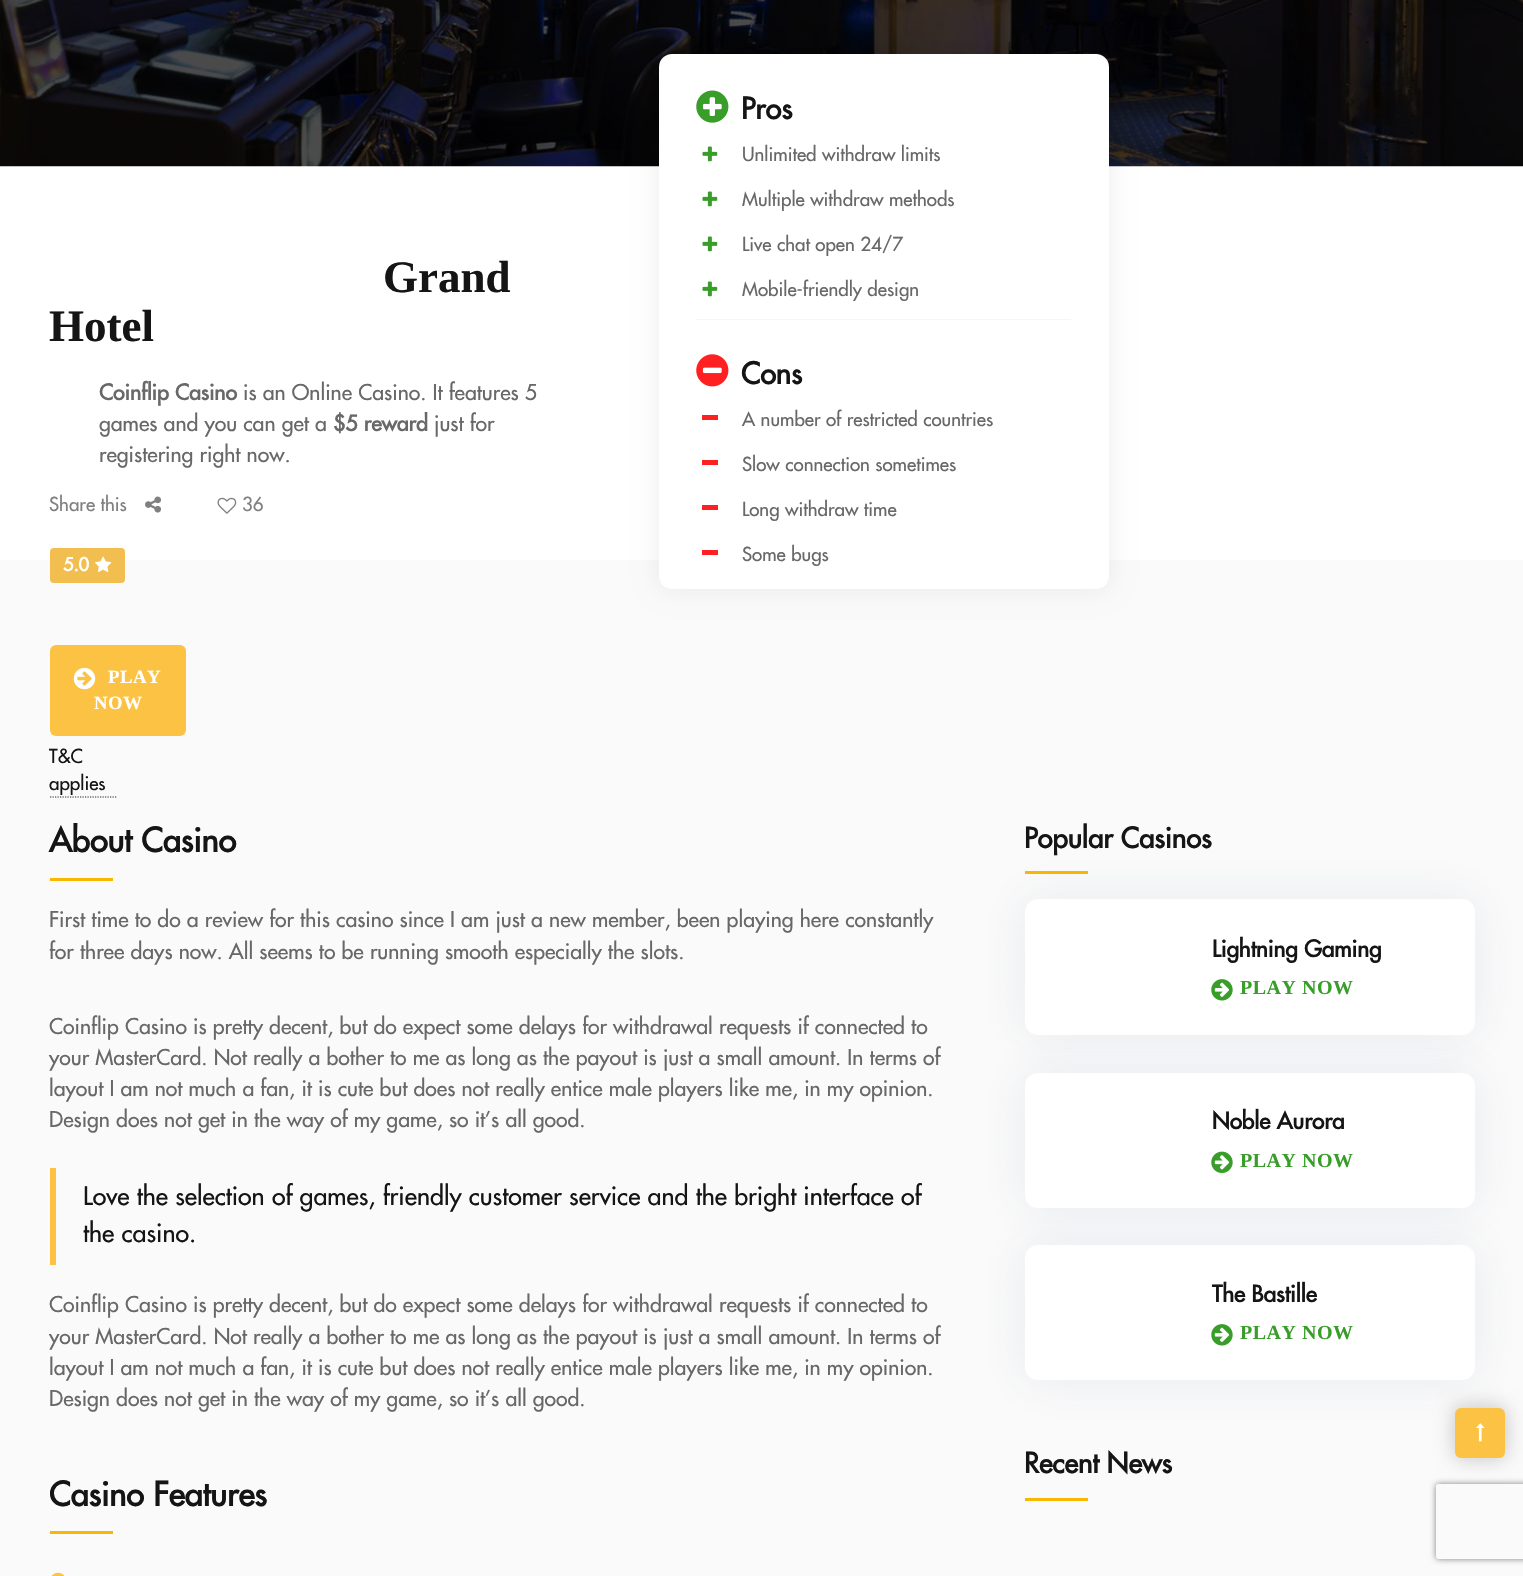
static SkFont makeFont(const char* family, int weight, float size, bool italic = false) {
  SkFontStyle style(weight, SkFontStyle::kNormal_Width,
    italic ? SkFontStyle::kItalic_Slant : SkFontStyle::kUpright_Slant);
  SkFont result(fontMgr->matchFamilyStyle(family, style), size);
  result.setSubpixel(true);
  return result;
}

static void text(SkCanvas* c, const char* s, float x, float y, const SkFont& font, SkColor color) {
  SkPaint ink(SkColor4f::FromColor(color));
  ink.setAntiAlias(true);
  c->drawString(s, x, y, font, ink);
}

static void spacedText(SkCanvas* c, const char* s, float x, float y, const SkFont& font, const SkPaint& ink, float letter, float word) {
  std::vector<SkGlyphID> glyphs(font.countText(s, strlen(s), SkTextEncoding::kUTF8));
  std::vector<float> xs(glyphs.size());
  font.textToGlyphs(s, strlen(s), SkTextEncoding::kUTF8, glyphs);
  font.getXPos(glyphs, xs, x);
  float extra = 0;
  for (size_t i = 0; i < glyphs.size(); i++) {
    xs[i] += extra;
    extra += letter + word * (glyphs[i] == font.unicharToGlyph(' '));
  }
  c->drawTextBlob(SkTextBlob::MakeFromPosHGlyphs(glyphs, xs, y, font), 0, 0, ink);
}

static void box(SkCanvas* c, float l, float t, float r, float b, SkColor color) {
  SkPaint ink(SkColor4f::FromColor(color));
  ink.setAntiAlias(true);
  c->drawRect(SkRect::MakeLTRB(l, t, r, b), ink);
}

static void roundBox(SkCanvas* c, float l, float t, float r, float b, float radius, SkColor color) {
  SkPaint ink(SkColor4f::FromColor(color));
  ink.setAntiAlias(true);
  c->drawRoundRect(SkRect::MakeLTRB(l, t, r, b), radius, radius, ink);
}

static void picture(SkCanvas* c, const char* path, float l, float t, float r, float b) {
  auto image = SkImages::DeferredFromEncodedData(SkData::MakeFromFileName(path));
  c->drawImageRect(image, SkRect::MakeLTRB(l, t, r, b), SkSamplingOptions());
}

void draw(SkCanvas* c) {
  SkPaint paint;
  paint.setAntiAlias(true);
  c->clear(0xffffffff);
  picture(c, "img_01.png", 0, 0, 1523, 167);
  SkFont face1 = makeFont("Liberation Serif", 700, 45);
  text(c, "Grand", 383, 292, face1, 0xff151515);
  text(c, "Hotel", 49, 341, face1, 0xff151515);
  SkFont face2 = makeFont("Futura", 700, 21.25f);
  text(c, "Coinflip Casino", 99, 400, face2, 0xff686868);
  SkFont face3 = makeFont("Futura", 500, 21.25f);
  text(c, "is an Online Casino. It features 5", 243, 400, face3, 0xff686868);
  text(c, "games and you can get a", 99, 431, face3, 0xff686868);
  text(c, "$5 reward", 333, 431, face2, 0xff686868);
  text(c, "just for", 434, 431, face3, 0xff686868);
  text(c, "registering right now.", 99, 462, face3, 0xff686868);
  SkFont face4 = makeFont("Futura", 500, 18.75f);
  text(c, "Share this", 49, 511, face4, 0xff808080);
  picture(c, "img_02.png", 145, 496, 161, 513);
  picture(c, "img_03.png", 217, 497, 237, 514);
  text(c, "36", 242, 511, face4, 0xff808080);
  box(c, 0, 560, 1523, 1576, 0xfffafafa);
  roundBox(c, 50, 548, 125, 583, 4, 0xfff2be50);
  SkFont face5 = makeFont("Futura", 700, 18);
  text(c, "5.0", 63, 571, face5, 0xffffffff);
  picture(c, "img_04.png", 95, 556, 112, 572);
  roundBox(c, 50, 645, 186, 736, 6, 0xfffcc244);
  picture(c, "img_05.png", 73, 667, 96, 690);
  SkFont face6 = makeFont("Liberation Serif", 700, 18.75f);
  paint.setColor(0xffffffff);
  spacedText(c, "PLAY", 108, 683, face6, paint, 0.5f, 0);
  spacedText(c, "NOW", 94, 709, face6, paint, 0.5f, 0);
  paint.setStyle(SkPaint::kStroke_Style);
  paint.setStrokeWidth(1.2f);
  paint.setColor(0xff252525);
  paint.setPathEffect(SkDashPathEffect::Make({{1.25f, 1.25f}}, 0));
  c->drawPath(SkPathBuilder().moveTo(50, 797).lineTo(117.5f, 797).detach(), paint);
  paint.setPathEffect(nullptr);
  text(c, "T&C", 49, 763, face4, 0xff151515);
  text(c, "applies", 49, 790, face4, 0xff151515);
  paint.setStyle(SkPaint::kFill_Style);
  paint.setColor(0x12000000);
  paint.setMaskFilter(SkMaskFilter::MakeBlur(kNormal_SkBlurStyle, 12.5f));
  c->drawRoundRect(SkRect::MakeLTRB(659, 54, 1109, 589), 13, 13, paint);
  paint.setMaskFilter(nullptr);
  roundBox(c, 659, 54, 1109, 589, 13, 0xffffffff);
  picture(c, "img_06.png", 696, 90, 729, 123);
  SkFont face7 = makeFont("Futura", 700, 29);
  text(c, "Pros", 741, 119, face7, 0xff151515);
  picture(c, "img_07.png", 702, 146, 718, 162);
  text(c, "Unlimited withdraw limits", 742, 161, face4, 0xff686868);
  picture(c, "img_07.png", 702, 191, 718, 207);
  text(c, "Multiple withdraw methods", 742, 206, face4, 0xff686868);
  picture(c, "img_07.png", 702, 236, 718, 252);
  text(c, "Live chat open 24/7", 742, 251, face4, 0xff686868);
  picture(c, "img_07.png", 702, 281, 718, 297);
  text(c, "Mobile-friendly design", 742, 296, face4, 0xff686868);
  box(c, 696, 319, 1071, 320, 0xfff5f5f5);
  picture(c, "img_08.png", 696, 354, 729, 387);
  text(c, "Cons", 741, 384, face7, 0xff151515);
  box(c, 702, 415, 718, 420, 0xffff2122);
  text(c, "A number of restricted countries", 742, 426, face4, 0xff686868);
  box(c, 702, 460, 718, 465, 0xffff2122);
  text(c, "Slow connection sometimes", 742, 471, face4, 0xff686868);
  box(c, 702, 505, 718, 510, 0xffff2122);
  text(c, "Long withdraw time", 742, 516, face4, 0xff686868);
  box(c, 702, 550, 718, 555, 0xffff2122);
  text(c, "Some bugs", 742, 561, face4, 0xff686868);
  SkFont face8 = makeFont("Futura", 700, 32.5f);
  text(c, "About Casino", 49, 852, face8, 0xff151515);
  box(c, 50, 878, 113, 881, 0xfffab702);
  text(c, "First time to do a review for this casino since I am just a new member, been playing here constantly", 49, 927, face3, 0xff686868);
  text(c, "for three days now. All seems to be running smooth especially the slots.", 49, 959, face3, 0xff686868);
  text(c, "Coinflip Casino is pretty decent, but do expect some delays for withdrawal requests if connected to", 49, 1034, face3, 0xff686868);
  text(c, "your MasterCard. Not really a bother to me as long as the payout is just a small amount. In terms of", 49, 1065, face3, 0xff686868);
  text(c, "layout I am not much a fan, it is cute but does not really entice male players like me, in my opinion.", 49, 1096, face3, 0xff686868);
  text(c, "Design does not get in the way of my game, so it’s all good.", 49, 1127, face3, 0xff686868);
  box(c, 50, 1168, 56, 1265, 0xfffcc244);
  SkFont face9 = makeFont("Futura", 500, 25);
  text(c, "Love the selection of games, friendly customer service and the bright interface of", 83, 1205, face9, 0xff151515);
  text(c, "the casino.", 83, 1242, face9, 0xff151515);
  text(c, "Coinflip Casino is pretty decent, but do expect some delays for withdrawal requests if connected to", 49, 1312, face3, 0xff686868);
  text(c, "your MasterCard. Not really a bother to me as long as the payout is just a small amount. In terms of", 49, 1344, face3, 0xff686868);
  text(c, "layout I am not much a fan, it is cute but does not really entice male players like me, in my opinion.", 49, 1375, face3, 0xff686868);
  text(c, "Design does not get in the way of my game, so it’s all good.", 49, 1406, face3, 0xff686868);
  text(c, "Casino Features", 49, 1506, face8, 0xff151515);
  box(c, 50, 1531, 113, 1534, 0xfffab702);
  picture(c, "img_09.png", 51, 1572, 65, 1576);
  SkFont face10 = makeFont("Futura", 700, 27.5f);
  text(c, "Popular Casinos", 1024, 848, face10, 0xff151515);
  box(c, 1025, 871, 1088, 874, 0xfffab702);
  paint.setColor(0x173b4d85);
  paint.setMaskFilter(SkMaskFilter::MakeBlur(kNormal_SkBlurStyle, 24));
  c->drawRoundRect(SkRect::MakeLTRB(1025, 899, 1475, 1035), 13, 13, paint);
  paint.setMaskFilter(nullptr);
  roundBox(c, 1025, 899, 1475, 1035, 13, 0xffffffff);
  SkFont face11 = makeFont("Futura", 700, 22.5f);
  text(c, "Lightning Gaming", 1212, 957, face11, 0xff151515);
  picture(c, "img_10.png", 1211, 979, 1233, 1001);
  SkFont face12 = makeFont("Liberation Serif", 700, 20);
  paint.setColor(0xff389d29);
  spacedText(c, "PLAY NOW", 1240, 994, face12, paint, 0.5f, 0);
  paint.setColor(0x173b4d85);
  paint.setMaskFilter(SkMaskFilter::MakeBlur(kNormal_SkBlurStyle, 24));
  c->drawRoundRect(SkRect::MakeLTRB(1025, 1073, 1475, 1208), 13, 13, paint);
  paint.setMaskFilter(nullptr);
  roundBox(c, 1025, 1073, 1475, 1208, 13, 0xffffffff);
  text(c, "Noble Aurora", 1212, 1129, face11, 0xff151515);
  picture(c, "img_11.png", 1211, 1151, 1233, 1173);
  paint.setColor(0xff389d29);
  spacedText(c, "PLAY NOW", 1240, 1167, face12, paint, 0.5f, 0);
  paint.setColor(0x173b4d85);
  paint.setMaskFilter(SkMaskFilter::MakeBlur(kNormal_SkBlurStyle, 24));
  c->drawRoundRect(SkRect::MakeLTRB(1025, 1245, 1475, 1380), 13, 13, paint);
  paint.setMaskFilter(nullptr);
  roundBox(c, 1025, 1245, 1475, 1380, 13, 0xffffffff);
  text(c, "The Bastille", 1212, 1302, face11, 0xff151515);
  picture(c, "img_10.png", 1211, 1324, 1233, 1346);
  paint.setColor(0xff389d29);
  spacedText(c, "PLAY NOW", 1240, 1339, face12, paint, 0.5f, 0);
  text(c, "Recent News", 1024, 1473, face10, 0xff151515);
  box(c, 1025, 1498, 1088, 1501, 0xfffab702);
  paint.setColor(0x33000000);
  paint.setMaskFilter(SkMaskFilter::MakeBlur(kNormal_SkBlurStyle, 9.5f));
  c->drawRoundRect(SkRect::MakeLTRB(1454, 1406, 1506, 1459), 8, 8, paint);
  paint.setMaskFilter(nullptr);
  roundBox(c, 1455, 1408, 1505, 1458, 6, 0xfffcc244);
  picture(c, "img_12.png", 1476, 1423, 1485, 1442);
  c->save();
  c->clipPath(SkPathBuilder(SkPathFillType::kEvenOdd).moveTo(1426, 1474).lineTo(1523, 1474).lineTo(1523, 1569).lineTo(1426, 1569).close().moveTo(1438.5f, 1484).lineTo(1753.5f, 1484).cubicTo(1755, 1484, 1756, 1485, 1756, 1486.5f).lineTo(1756, 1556.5f).cubicTo(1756, 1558, 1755, 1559, 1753.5f, 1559).lineTo(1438.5f, 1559).cubicTo(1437, 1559, 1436, 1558, 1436, 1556.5f).lineTo(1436, 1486.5f).cubicTo(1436, 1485, 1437, 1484, 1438.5f, 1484).close().detach(), true);
  paint.setColor(0xff808080);
  paint.setMaskFilter(SkMaskFilter::MakeBlur(kNormal_SkBlurStyle, 3));
  c->drawRoundRect(SkRect::MakeLTRB(1436, 1484, 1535, 1559), 2.5f, 2.5f, paint);
  paint.setMaskFilter(nullptr);
  c->restore();
}
